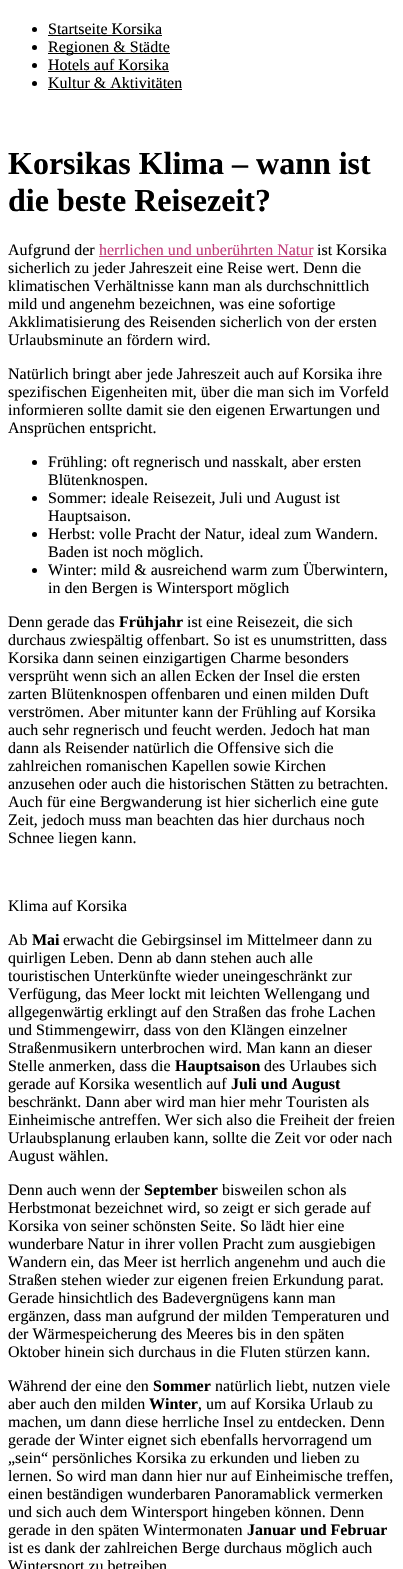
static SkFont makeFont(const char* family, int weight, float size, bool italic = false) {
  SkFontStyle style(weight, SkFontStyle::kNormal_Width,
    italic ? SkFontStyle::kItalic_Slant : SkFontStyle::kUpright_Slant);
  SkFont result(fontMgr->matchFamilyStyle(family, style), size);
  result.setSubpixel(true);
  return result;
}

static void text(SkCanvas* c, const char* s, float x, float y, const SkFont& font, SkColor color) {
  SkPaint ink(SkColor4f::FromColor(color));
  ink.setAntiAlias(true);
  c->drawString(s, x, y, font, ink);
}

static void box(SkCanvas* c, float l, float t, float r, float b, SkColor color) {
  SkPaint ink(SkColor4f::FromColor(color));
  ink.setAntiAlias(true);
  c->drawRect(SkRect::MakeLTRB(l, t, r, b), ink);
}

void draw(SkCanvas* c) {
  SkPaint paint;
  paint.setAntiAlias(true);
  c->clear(0xffffffff);
  paint.setColor(0xff000000);
  c->drawCircle(34.5f, 29.5f, 2.5f, paint);
  SkFont face1 = makeFont("Liberation Serif", 400, 16);
  text(c, "Startseite Korsika", 48, 34, face1, 0xff000000);
  box(c, 48, 35, 162, 36, 0xff000000);
  c->drawCircle(34.5f, 47.5f, 2.5f, paint);
  box(c, 48, 53, 170, 54, 0xff000000);
  text(c, "Regionen & Städte", 48, 52, face1, 0xff000000);
  c->drawCircle(34.5f, 65.5f, 2.5f, paint);
  text(c, "Hotels auf Korsika", 48, 70, face1, 0xff000000);
  box(c, 48, 71, 169, 72, 0xff000000);
  c->drawCircle(34.5f, 83.5f, 2.5f, paint);
  text(c, "Kultur & Aktivitäten", 48, 88, face1, 0xff000000);
  box(c, 48, 89, 182, 90, 0xff000000);
  SkFont face2 = makeFont("Liberation Serif", 700, 32);
  text(c, "Korsikas Klima – wann ist", 8, 174, face2, 0xff000000);
  text(c, "die beste Reisezeit?", 8, 211, face2, 0xff000000);
  text(c, "Aufgrund der", 8, 255, face1, 0xff000000);
  text(c, "herrlichen und unberührten Natur", 99, 255, face1, 0xffc13e7b);
  box(c, 99, 256, 313, 257, 0xffc13e7b);
  text(c, "ist Korsika", 317, 255, face1, 0xff000000);
  text(c, "sicherlich zu jeder Jahreszeit eine Reise wert. Denn die", 8, 273, face1, 0xff000000);
  text(c, "klimatischen Verhältnisse kann man als durchschnittlich", 8, 291, face1, 0xff000000);
  text(c, "mild und angenehm bezeichnen, was eine sofortige", 8, 309, face1, 0xff000000);
  text(c, "Akklimatisierung des Reisenden sicherlich von der ersten", 8, 327, face1, 0xff000000);
  text(c, "Urlaubsminute an fördern wird.", 8, 345, face1, 0xff000000);
  text(c, "Natürlich bringt aber jede Jahreszeit auch auf Korsika ihre", 8, 379, face1, 0xff000000);
  text(c, "spezifischen Eigenheiten mit, über die man sich im Vorfeld", 8, 397, face1, 0xff000000);
  text(c, "informieren sollte damit sie den eigenen Erwartungen und", 8, 415, face1, 0xff000000);
  text(c, "Ansprüchen entspricht.", 8, 433, face1, 0xff000000);
  c->drawCircle(34.5f, 462.5f, 2.5f, paint);
  text(c, "Frühling: oft regnerisch und nasskalt, aber ersten", 48, 467, face1, 0xff000000);
  text(c, "Blütenknospen.", 48, 485, face1, 0xff000000);
  c->drawCircle(34.5f, 498.5f, 2.5f, paint);
  text(c, "Sommer: ideale Reisezeit, Juli und August ist", 48, 503, face1, 0xff000000);
  text(c, "Hauptsaison.", 48, 521, face1, 0xff000000);
  c->drawCircle(34.5f, 534.5f, 2.5f, paint);
  text(c, "Herbst: volle Pracht der Natur, ideal zum Wandern.", 48, 539, face1, 0xff000000);
  text(c, "Baden ist noch möglich.", 48, 557, face1, 0xff000000);
  c->drawCircle(34.5f, 570.5f, 2.5f, paint);
  text(c, "Winter: mild & ausreichend warm zum Überwintern,", 48, 575, face1, 0xff000000);
  text(c, "in den Bergen is Wintersport möglich", 48, 593, face1, 0xff000000);
  text(c, "Denn gerade das", 8, 627, face1, 0xff000000);
  SkFont face3 = makeFont("Liberation Serif", 700, 16);
  text(c, "Frühjahr", 119, 627, face3, 0xff000000);
  text(c, "ist eine Reisezeit, die sich", 187, 627, face1, 0xff000000);
  text(c, "durchaus zwiespältig offenbart. So ist es unumstritten, dass", 8, 645, face1, 0xff000000);
  text(c, "Korsika dann seinen einzigartigen Charme besonders", 8, 663, face1, 0xff000000);
  text(c, "versprüht wenn sich an allen Ecken der Insel die ersten", 8, 681, face1, 0xff000000);
  text(c, "zarten Blütenknospen offenbaren und einen milden Duft", 8, 699, face1, 0xff000000);
  text(c, "verströmen. Aber mitunter kann der Frühling auf Korsika", 8, 717, face1, 0xff000000);
  text(c, "auch sehr regnerisch und feucht werden. Jedoch hat man", 8, 735, face1, 0xff000000);
  text(c, "dann als Reisender natürlich die Offensive sich die", 8, 753, face1, 0xff000000);
  text(c, "zahlreichen romanischen Kapellen sowie Kirchen", 8, 771, face1, 0xff000000);
  text(c, "anzusehen oder auch die historischen Stätten zu betrachten.", 8, 789, face1, 0xff000000);
  text(c, "Auch für eine Bergwanderung ist hier sicherlich eine gute", 8, 807, face1, 0xff000000);
  text(c, "Zeit, jedoch muss man beachten das hier durchaus noch", 8, 825, face1, 0xff000000);
  text(c, "Schnee liegen kann.", 8, 843, face1, 0xff000000);
  text(c, "Klima auf Korsika", 8, 911, face1, 0xff000000);
  text(c, "Ab", 8, 945, face1, 0xff000000);
  text(c, "Mai", 32, 945, face3, 0xff000000);
  text(c, "erwacht die Gebirgsinsel im Mittelmeer dann zu", 63, 945, face1, 0xff000000);
  text(c, "quirligen Leben. Denn ab dann stehen auch alle", 8, 963, face1, 0xff000000);
  text(c, "touristischen Unterkünfte wieder uneingeschränkt zur", 8, 981, face1, 0xff000000);
  text(c, "Verfügung, das Meer lockt mit leichten Wellengang und", 8, 999, face1, 0xff000000);
  text(c, "allgegenwärtig erklingt auf den Straßen das frohe Lachen", 8, 1017, face1, 0xff000000);
  text(c, "und Stimmengewirr, dass von den Klängen einzelner", 8, 1035, face1, 0xff000000);
  text(c, "Straßenmusikern unterbrochen wird. Man kann an dieser", 8, 1053, face1, 0xff000000);
  text(c, "Stelle anmerken, dass die", 8, 1071, face1, 0xff000000);
  text(c, "Hauptsaison", 175, 1071, face3, 0xff000000);
  text(c, "des Urlaubes sich", 264, 1071, face1, 0xff000000);
  text(c, "gerade auf Korsika wesentlich auf", 8, 1089, face1, 0xff000000);
  text(c, "Juli und August", 231, 1089, face3, 0xff000000);
  text(c, "beschränkt. Dann aber wird man hier mehr Touristen als", 8, 1107, face1, 0xff000000);
  text(c, "Einheimische antreffen. Wer sich also die Freiheit der freien", 8, 1125, face1, 0xff000000);
  text(c, "Urlaubsplanung erlauben kann, sollte die Zeit vor oder nach", 8, 1143, face1, 0xff000000);
  text(c, "August wählen.", 8, 1161, face1, 0xff000000);
  text(c, "Denn auch wenn der", 8, 1195, face1, 0xff000000);
  text(c, "September", 144, 1195, face3, 0xff000000);
  text(c, "bisweilen schon als", 222, 1195, face1, 0xff000000);
  text(c, "Herbstmonat bezeichnet wird, so zeigt er sich gerade auf", 8, 1213, face1, 0xff000000);
  text(c, "Korsika von seiner schönsten Seite. So lädt hier eine", 8, 1231, face1, 0xff000000);
  text(c, "wunderbare Natur in ihrer vollen Pracht zum ausgiebigen", 8, 1249, face1, 0xff000000);
  text(c, "Wandern ein, das Meer ist herrlich angenehm und auch die", 8, 1267, face1, 0xff000000);
  text(c, "Straßen stehen wieder zur eigenen freien Erkundung parat.", 8, 1285, face1, 0xff000000);
  text(c, "Gerade hinsichtlich des Badevergnügens kann man", 8, 1303, face1, 0xff000000);
  text(c, "ergänzen, dass man aufgrund der milden Temperaturen und", 8, 1321, face1, 0xff000000);
  text(c, "der Wärmespeicherung des Meeres bis in den späten", 8, 1339, face1, 0xff000000);
  text(c, "Oktober hinein sich durchaus in die Fluten stürzen kann.", 8, 1357, face1, 0xff000000);
  text(c, "Während der eine den", 8, 1391, face1, 0xff000000);
  text(c, "Sommer", 153, 1391, face3, 0xff000000);
  text(c, "natürlich liebt, nutzen viele", 215, 1391, face1, 0xff000000);
  text(c, "aber auch den milden", 8, 1409, face1, 0xff000000);
  text(c, "Winter", 149, 1409, face3, 0xff000000);
  text(c, ", um auf Korsika Urlaub zu", 198, 1409, face1, 0xff000000);
  text(c, "machen, um dann diese herrliche Insel zu entdecken. Denn", 8, 1427, face1, 0xff000000);
  text(c, "gerade der Winter eignet sich ebenfalls hervorragend um", 8, 1445, face1, 0xff000000);
  text(c, "„sein“ persönliches Korsika zu erkunden und lieben zu", 8, 1463, face1, 0xff000000);
  text(c, "lernen. So wird man dann hier nur auf Einheimische treffen,", 8, 1481, face1, 0xff000000);
  text(c, "einen beständigen wunderbaren Panoramablick vermerken", 8, 1499, face1, 0xff000000);
  text(c, "und sich auch dem Wintersport hingeben können. Denn", 8, 1517, face1, 0xff000000);
  text(c, "gerade in den späten Wintermonaten", 8, 1535, face1, 0xff000000);
  text(c, "Januar und Februar", 247, 1535, face3, 0xff000000);
  text(c, "ist es dank der zahlreichen Berge durchaus möglich auch", 8, 1553, face1, 0xff000000);
  text(c, "Wintersport zu betreiben", 8, 1571, face1, 0xff000000);
}
